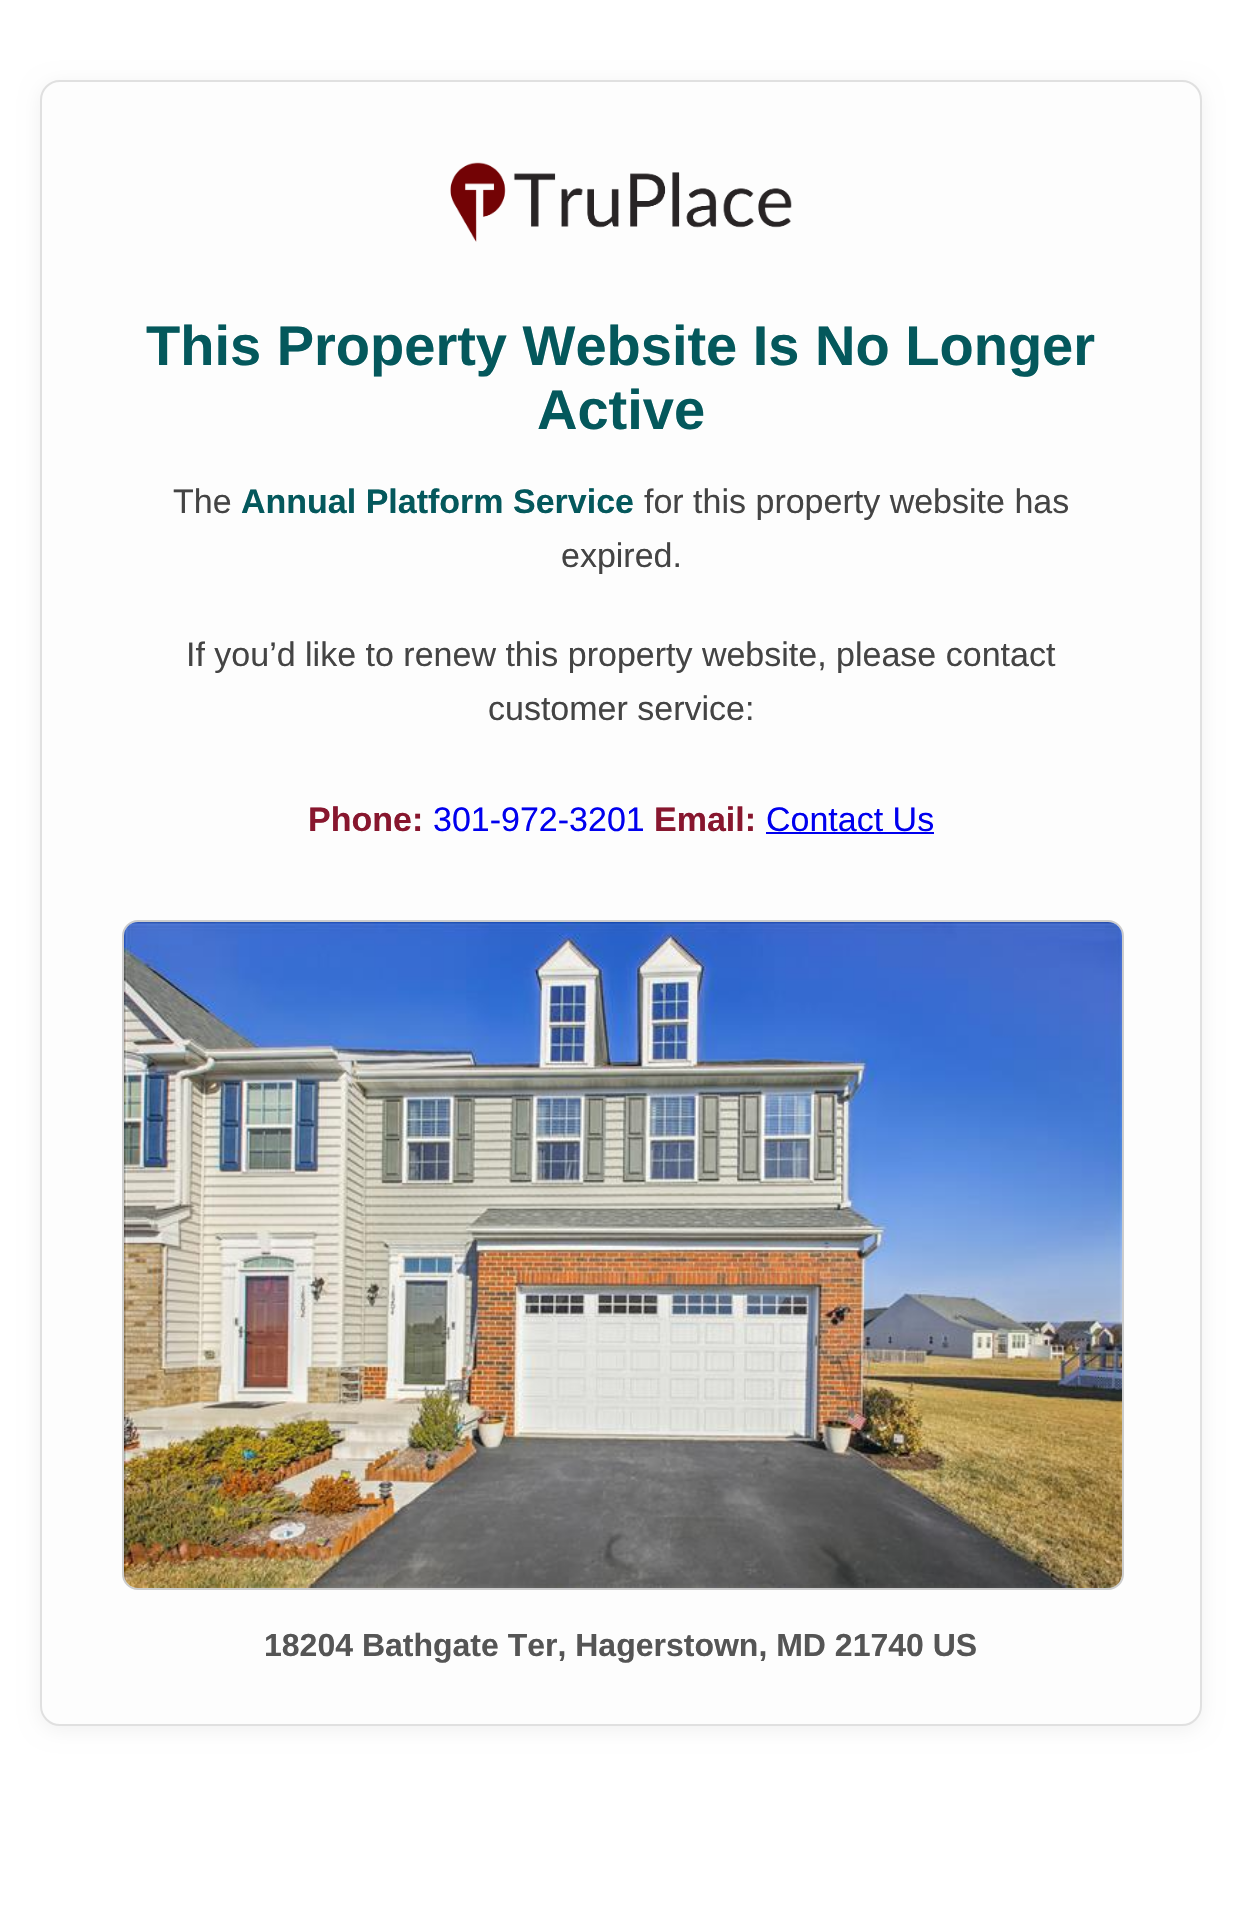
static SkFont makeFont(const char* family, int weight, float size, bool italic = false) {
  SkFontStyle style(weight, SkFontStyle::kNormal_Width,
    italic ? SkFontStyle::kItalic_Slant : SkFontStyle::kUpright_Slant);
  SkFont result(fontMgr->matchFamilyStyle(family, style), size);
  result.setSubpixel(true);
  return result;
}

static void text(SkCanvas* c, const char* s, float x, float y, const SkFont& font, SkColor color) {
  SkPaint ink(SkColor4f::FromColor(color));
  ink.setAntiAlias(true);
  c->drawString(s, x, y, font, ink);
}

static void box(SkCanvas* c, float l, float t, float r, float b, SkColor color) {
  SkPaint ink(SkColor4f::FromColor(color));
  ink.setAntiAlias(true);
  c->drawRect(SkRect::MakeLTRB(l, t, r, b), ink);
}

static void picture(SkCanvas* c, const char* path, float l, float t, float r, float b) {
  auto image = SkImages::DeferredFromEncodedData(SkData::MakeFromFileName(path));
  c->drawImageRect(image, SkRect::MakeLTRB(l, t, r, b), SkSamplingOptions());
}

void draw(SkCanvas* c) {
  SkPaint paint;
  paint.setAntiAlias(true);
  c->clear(0xffffffff);
  paint.setColor(0x0f000000);
  paint.setMaskFilter(SkMaskFilter::MakeBlur(kNormal_SkBlurStyle, 10));
  c->drawRoundRect(SkRect::MakeLTRB(40, 84, 1202, 1730), 20, 20, paint);
  paint.setMaskFilter(nullptr);
  paint.setColor(0xfffdfdfd);
  c->drawRoundRect(SkRect::MakeLTRB(41, 81, 1201, 1725), 19, 19, paint);
  paint.setStyle(SkPaint::kStroke_Style);
  paint.setStrokeWidth(2);
  paint.setColor(0xffe0e0e0);
  c->drawRoundRect(SkRect::MakeLTRB(41, 81, 1201, 1725), 19, 19, paint);
  picture(c, "img_01.png", 450, 162, 792, 242);
  SkFont face1 = makeFont("Liberation Sans", 700, 56);
  text(c, "This Property Website Is No Longer", 146, 365, face1, 0xff04585c);
  text(c, "Active", 537, 429, face1, 0xff04585c);
  SkFont face2 = makeFont("Liberation Sans", 400, 34);
  text(c, "The", 173, 513, face2, 0xff444444);
  SkFont face3 = makeFont("Liberation Sans", 700, 34);
  text(c, "Annual Platform Service", 241, 513, face3, 0xff04585c);
  text(c, "for this property website has", 644, 513, face2, 0xff444444);
  text(c, "expired.", 561, 567, face2, 0xff444444);
  text(c, "If you’d like to renew this property website, please contact", 186, 666, face2, 0xff444444);
  text(c, "customer service:", 488, 720, face2, 0xff444444);
  text(c, "Phone:", 308, 831, face3, 0xff87162e);
  text(c, "301-972-3201", 433, 831, face2, 0xff0000ee);
  text(c, "Email:", 654, 831, face3, 0xff87162e);
  text(c, "Contact Us", 766, 831, face2, 0xff0000ee);
  box(c, 766, 832, 934, 834, 0xff0000ee);
  paint.setColor(0xffcccccc);
  c->drawRoundRect(SkRect::MakeLTRB(123, 921, 1123, 1589), 15, 15, paint);
  picture(c, "img_02.png", 124, 922, 1122, 1588);
  SkFont face4 = makeFont("Liberation Sans", 700, 32);
  text(c, "18204 Bathgate Ter, Hagerstown, MD 21740 US", 264, 1656, face4, 0xff555555);
}
